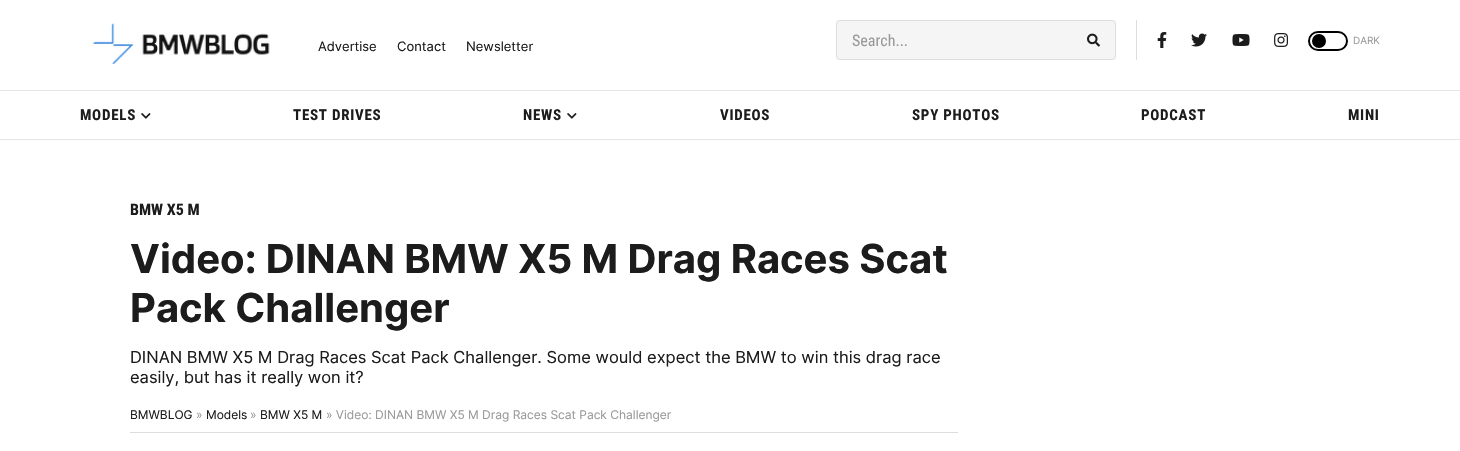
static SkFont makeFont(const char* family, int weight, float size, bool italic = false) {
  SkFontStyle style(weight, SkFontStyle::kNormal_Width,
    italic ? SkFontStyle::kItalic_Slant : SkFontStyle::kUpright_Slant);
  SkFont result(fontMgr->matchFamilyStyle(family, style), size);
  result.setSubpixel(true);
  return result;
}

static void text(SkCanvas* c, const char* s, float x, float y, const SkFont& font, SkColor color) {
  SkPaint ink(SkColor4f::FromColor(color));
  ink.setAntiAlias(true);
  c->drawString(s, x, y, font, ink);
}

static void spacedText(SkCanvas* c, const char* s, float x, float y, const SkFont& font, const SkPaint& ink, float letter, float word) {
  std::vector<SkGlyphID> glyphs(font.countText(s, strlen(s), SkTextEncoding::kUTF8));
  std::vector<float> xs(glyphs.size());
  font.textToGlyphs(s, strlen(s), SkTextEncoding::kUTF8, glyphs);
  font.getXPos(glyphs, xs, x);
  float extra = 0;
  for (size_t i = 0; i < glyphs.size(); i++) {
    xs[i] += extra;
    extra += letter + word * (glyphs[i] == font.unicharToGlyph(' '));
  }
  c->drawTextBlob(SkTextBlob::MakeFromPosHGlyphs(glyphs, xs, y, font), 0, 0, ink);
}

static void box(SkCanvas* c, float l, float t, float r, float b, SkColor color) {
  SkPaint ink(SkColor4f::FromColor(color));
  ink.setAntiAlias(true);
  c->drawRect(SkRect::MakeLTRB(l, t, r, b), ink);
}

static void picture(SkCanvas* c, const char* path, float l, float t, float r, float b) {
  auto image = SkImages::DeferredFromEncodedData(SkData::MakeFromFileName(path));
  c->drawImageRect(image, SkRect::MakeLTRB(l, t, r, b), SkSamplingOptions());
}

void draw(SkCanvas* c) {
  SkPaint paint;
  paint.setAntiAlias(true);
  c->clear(0xffffffff);
  picture(c, "img_01.png", 92, 23, 270, 64);
  SkFont face1 = makeFont("Inter", 400, 13);
  text(c, "Advertise", 318, 51, face1, 0xff1c1c1c);
  text(c, "Contact", 397, 51, face1, 0xff1c1c1c);
  text(c, "Newsletter", 466, 51, face1, 0xff1c1c1c);
  box(c, 1136, 20, 1137, 60, 0xffdddddd);
  paint.setColor(0xfff5f5f5);
  c->drawRoundRect(SkRect::MakeLTRB(836.5f, 20.5f, 1115.5f, 59.5f), 3.5f, 3.5f, paint);
  paint.setStyle(SkPaint::kStroke_Style);
  paint.setStrokeWidth(1);
  paint.setColor(0xffdddddd);
  c->drawRoundRect(SkRect::MakeLTRB(836.5f, 20.5f, 1115.5f, 59.5f), 3.5f, 3.5f, paint);
  SkFont face2 = makeFont("Roboto Condensed", 400, 16);
  text(c, "Search...", 852, 46, face2, 0xff999999);
  picture(c, "img_02.png", 1087, 33, 1100, 47);
  picture(c, "img_03.png", 1157, 32, 1167, 48);
  picture(c, "img_04.png", 1191, 33, 1207, 47);
  picture(c, "img_05.png", 1232, 34, 1250, 46);
  picture(c, "img_06.png", 1274, 33, 1289, 47);
  paint.setStrokeWidth(2);
  paint.setColor(0xff000000);
  c->drawRoundRect(SkRect::MakeLTRB(1309, 32, 1347, 50), 9, 9, paint);
  paint.setStyle(SkPaint::kFill_Style);
  c->drawCircle(1319, 41, 7, paint);
  SkFont face3 = makeFont("Inter", 400, 10);
  text(c, "DARK", 1353, 44, face3, 0xff999999);
  box(c, 0, 90, 1460, 91, 0xffe6e6e6);
  box(c, 0, 139, 1460, 140, 0xffe6e6e6);
  SkFont face4 = makeFont("Roboto Condensed", 700, 15);
  paint.setColor(0xff1c1c1c);
  spacedText(c, "MODELS", 80, 120, face4, paint, 0.75f, 0);
  picture(c, "img_07.png", 141, 113, 151, 119);
  spacedText(c, "TEST DRIVES", 293, 120, face4, paint, 0.75f, 0);
  spacedText(c, "NEWS", 523, 120, face4, paint, 0.75f, 0);
  picture(c, "img_07.png", 567, 113, 577, 119);
  spacedText(c, "VIDEOS", 720, 120, face4, paint, 0.75f, 0);
  spacedText(c, "SPY PHOTOS", 912, 120, face4, paint, 0.75f, 0);
  spacedText(c, "PODCAST", 1141, 120, face4, paint, 0.75f, 0);
  spacedText(c, "MINI", 1348, 120, face4, paint, 0.75f, 0);
  SkFont face5 = makeFont("Roboto Condensed", 700, 16);
  text(c, "BMW X5 M", 130, 215, face5, 0xff1c1c1c);
  SkFont face6 = makeFont("Inter", 700, 40);
  text(c, "Video: DINAN BMW X5 M Drag Races Scat", 130, 273, face6, 0xff1c1c1c);
  text(c, "Pack Challenger", 130, 322, face6, 0xff1c1c1c);
  SkFont face7 = makeFont("Inter", 400, 16.5f);
  text(c, "DINAN BMW X5 M Drag Races Scat Pack Challenger. Some would expect the BMW to win this drag race", 130, 363, face7, 0xff1c1c1c);
  text(c, "easily, but has it really won it?", 130, 383, face7, 0xff1c1c1c);
  box(c, 130, 432, 958, 433, 0xffdddddd);
  SkFont face8 = makeFont("Inter", 400, 12);
  text(c, "BMWBLOG", 130, 419, face8, 0xff1c1c1c);
  text(c, "»", 196, 419, face8, 0xff999999);
  text(c, "Models", 206, 419, face8, 0xff1c1c1c);
  text(c, "»", 250, 419, face8, 0xff999999);
  text(c, "BMW X5 M", 260, 419, face8, 0xff1c1c1c);
  text(c, "» Video: DINAN BMW X5 M Drag Races Scat Pack Challenger", 326, 419, face8, 0xff999999);
}
